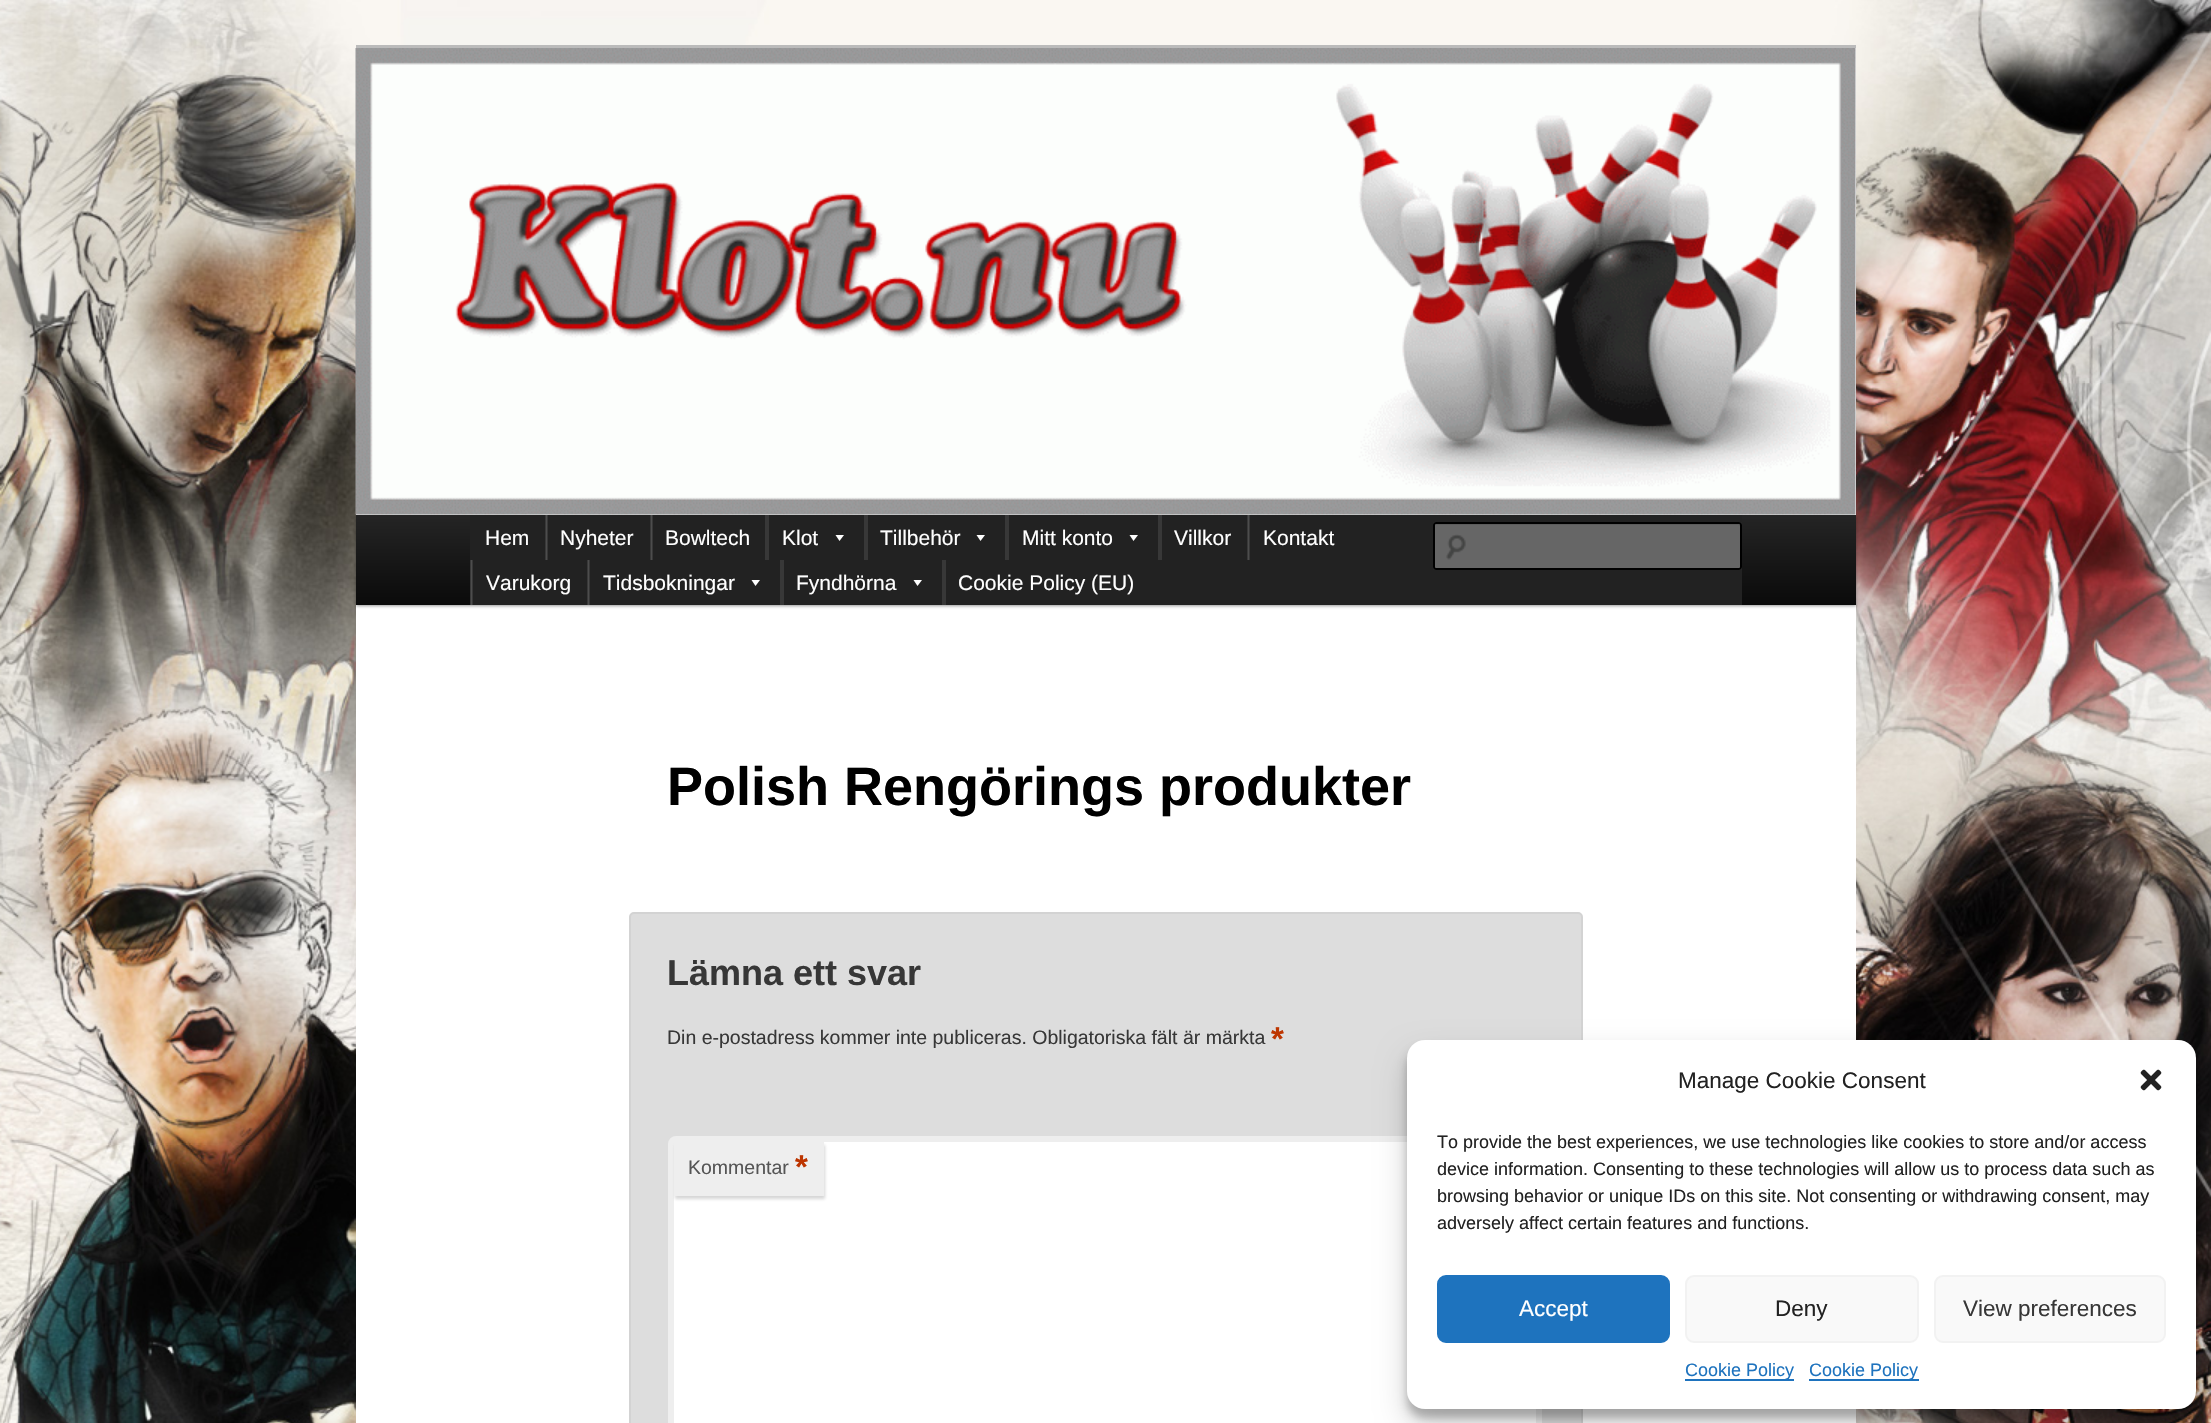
static SkFont makeFont(const char* family, int weight, float size, bool italic = false) {
  SkFontStyle style(weight, SkFontStyle::kNormal_Width,
    italic ? SkFontStyle::kItalic_Slant : SkFontStyle::kUpright_Slant);
  SkFont result(fontMgr->matchFamilyStyle(family, style), size);
  result.setSubpixel(true);
  return result;
}

static void text(SkCanvas* c, const char* s, float x, float y, const SkFont& font, SkColor color) {
  SkPaint ink(SkColor4f::FromColor(color));
  ink.setAntiAlias(true);
  c->drawString(s, x, y, font, ink);
}

static void box(SkCanvas* c, float l, float t, float r, float b, SkColor color) {
  SkPaint ink(SkColor4f::FromColor(color));
  ink.setAntiAlias(true);
  c->drawRect(SkRect::MakeLTRB(l, t, r, b), ink);
}

static void roundBox(SkCanvas* c, float l, float t, float r, float b, float radius, SkColor color) {
  SkPaint ink(SkColor4f::FromColor(color));
  ink.setAntiAlias(true);
  c->drawRoundRect(SkRect::MakeLTRB(l, t, r, b), radius, radius, ink);
}

static void picture(SkCanvas* c, const char* path, float l, float t, float r, float b) {
  auto image = SkImages::DeferredFromEncodedData(SkData::MakeFromFileName(path));
  c->drawImageRect(image, SkRect::MakeLTRB(l, t, r, b), SkSamplingOptions());
}

void draw(SkCanvas* c) {
  SkPaint paint;
  paint.setAntiAlias(true);
  c->clear(0xffffffff);
  picture(c, "img_01.png", 0, 0, 2211, 1423);
  box(c, 356, 48, 1856, 1423, 0xffffffff);
  box(c, 356, 45, 1856, 48, 0xffbbbbbb);
  paint.setColor(0x66000000);
  paint.setMaskFilter(SkMaskFilter::MakeBlur(kNormal_SkBlurStyle, 1.5f));
  c->drawRect(SkRect::MakeLTRB(356, 516, 1856, 606), paint);
  paint.setMaskFilter(nullptr);
  picture(c, "img_02.png", 355, 48, 1856, 515);
  {
    const SkColor colors[] = {0xff252525, 0xff0a0a0a};
    const float stops[] = {0, 1};
    const SkPoint ends[] = {{1106, 514}, {1106, 605}};
    paint.setShader(SkGradientShader::MakeLinear(ends, colors, stops, 2, SkTileMode::kClamp));
    paint.setAlpha(255);
  }
  c->drawRect(SkRect::MakeLTRB(356, 515, 1856, 605), paint);
  box(c, 470, 515, 1742, 605, 0xff222222);
  SkFont face1 = makeFont("Liberation Sans", 400, 21);
  text(c, "Hem", 485, 545, face1, 0xffffffff);
  box(c, 546, 515, 548, 560, 0xff383838);
  box(c, 545, 515, 547, 560, 0x1affffff);
  text(c, "Nyheter", 560, 545, face1, 0xffffffff);
  box(c, 651, 515, 653, 560, 0xff383838);
  box(c, 650, 515, 652, 560, 0x1affffff);
  text(c, "Bowltech", 665, 545, face1, 0xffffffff);
  box(c, 765, 515, 769, 560, 0xff383838);
  text(c, "Klot", 782, 545, face1, 0xffffffff);
  paint.setShader(nullptr);
  paint.setColor(0xffffffff);
  c->drawPath(SkPathBuilder().moveTo(844, 535).lineTo(839.5f, 541).lineTo(835.5f, 535).close().detach(), paint);
  box(c, 864, 515, 868, 560, 0xff383838);
  text(c, "Tillbehör", 880, 545, face1, 0xffffffff);
  c->drawPath(SkPathBuilder().moveTo(985, 535).lineTo(980.5f, 541).lineTo(976.5f, 535).close().detach(), paint);
  box(c, 1005, 515, 1009, 560, 0xff383838);
  text(c, "Mitt konto", 1022, 545, face1, 0xffffffff);
  c->drawPath(SkPathBuilder().moveTo(1138, 535).lineTo(1133.5f, 541).lineTo(1129.5f, 535).close().detach(), paint);
  box(c, 1158, 515, 1162, 560, 0xff383838);
  text(c, "Villkor", 1174, 545, face1, 0xffffffff);
  box(c, 1248, 515, 1250, 560, 0xff383838);
  box(c, 1247, 515, 1249, 560, 0x1affffff);
  text(c, "Kontakt", 1263, 545, face1, 0xffffffff);
  box(c, 471, 560, 473, 605, 0xff383838);
  box(c, 470, 560, 472, 605, 0x1affffff);
  text(c, "Varukorg", 486, 590, face1, 0xffffffff);
  box(c, 588, 560, 590, 605, 0xff383838);
  box(c, 587, 560, 589, 605, 0x1affffff);
  text(c, "Tidsbokningar", 603, 590, face1, 0xffffffff);
  c->drawPath(SkPathBuilder().moveTo(760, 580).lineTo(755.5f, 586).lineTo(751.5f, 580).close().detach(), paint);
  box(c, 780, 560, 784, 605, 0xff383838);
  text(c, "Fyndhörna", 796, 590, face1, 0xffffffff);
  c->drawPath(SkPathBuilder().moveTo(922, 580).lineTo(917.5f, 586).lineTo(913.5f, 580).close().detach(), paint);
  box(c, 942, 560, 946, 605, 0xff383838);
  text(c, "Cookie Policy (EU)", 958, 590, face1, 0xffffffff);
  roundBox(c, 1433, 522, 1742, 570, 3, 0xff666666);
  picture(c, "img_03.png", 1446, 534, 1466, 560);
  paint.setColor(0xff5c5c5c);
  c->drawPath(SkPathBuilder().moveTo(1436, 525).lineTo(1738, 525).lineTo(1740, 526).cubicTo(1740, 525, 1740, 524, 1738, 524).lineTo(1436, 524).lineTo(1434, 525).lineTo(1434, 526).close().detach(), paint);
  paint.setStyle(SkPaint::kStroke_Style);
  paint.setStrokeWidth(2);
  paint.setColor(0xff000000);
  c->drawRoundRect(SkRect::MakeLTRB(1434, 523, 1741, 569), 2, 2, paint);
  SkFont face2 = makeFont("Liberation Sans", 700, 54);
  text(c, "Polish Rengörings produkter", 667, 805, face2, 0xff000000);
  paint.setStyle(SkPaint::kFill_Style);
  paint.setColor(0xffdddddd);
  c->drawRoundRect(SkRect::MakeLTRB(630, 913, 1582, 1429), 4, 4, paint);
  paint.setStyle(SkPaint::kStroke_Style);
  paint.setColor(0xffd3d3d3);
  c->drawRoundRect(SkRect::MakeLTRB(630, 913, 1582, 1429), 4, 4, paint);
  SkFont face3 = makeFont("Liberation Sans", 700, 36);
  text(c, "Lämna ett svar", 667, 985, face3, 0xff373737);
  SkFont face4 = makeFont("Liberation Sans", 400, 19.5f);
  text(c, "Din e-postadress kommer inte publiceras. Obligatoriska fält är märkta", 667, 1044, face4, 0xff373737);
  SkFont face5 = makeFont("Liberation Sans", 700, 33);
  text(c, "*", 1271, 1050, face5, 0xffbd3500);
  paint.setStyle(SkPaint::kFill_Style);
  paint.setColor(0xffffffff);
  c->drawRoundRect(SkRect::MakeLTRB(671, 1139, 1539, 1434), 5, 5, paint);
  paint.setStyle(SkPaint::kStroke_Style);
  paint.setStrokeWidth(6);
  paint.setColor(0xffeeeeee);
  c->drawRoundRect(SkRect::MakeLTRB(671, 1139, 1539, 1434), 5, 5, paint);
  paint.setStyle(SkPaint::kFill_Style);
  paint.setColor(0xcccccccc);
  paint.setMaskFilter(SkMaskFilter::MakeBlur(kNormal_SkBlurStyle, 1.5f));
  c->drawRect(SkRect::MakeLTRB(675, 1145, 825, 1199), paint);
  paint.setMaskFilter(nullptr);
  box(c, 674, 1142, 824, 1196, 0xffeeeeee);
  text(c, "Kommentar", 688, 1174, face4, 0xff555555);
  text(c, "*", 795, 1178, face5, 0xffbd3500);
  paint.setColor(0x3b000000);
  paint.setMaskFilter(SkMaskFilter::MakeBlur(kNormal_SkBlurStyle, 4.5f));
  c->drawRoundRect(SkRect::MakeLTRB(1407, 1049, 2196, 1418), 18, 18, paint);
  paint.setMaskFilter(nullptr);
  paint.setColor(0x30000000);
  paint.setMaskFilter(SkMaskFilter::MakeBlur(kNormal_SkBlurStyle, 15));
  c->drawRoundRect(SkRect::MakeLTRB(1407, 1055, 2196, 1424), 18, 18, paint);
  paint.setMaskFilter(nullptr);
  roundBox(c, 1407, 1040, 2196, 1409, 18, 0xffffffff);
  SkFont face6 = makeFont("Liberation Sans", 400, 22.5f);
  text(c, "Manage Cookie Consent", 1678, 1088, face6, 0xff222222);
  picture(c, "img_04.png", 2140, 1069, 2162, 1091);
  SkFont face7 = makeFont("Liberation Sans", 400, 18);
  text(c, "To provide the best experiences, we use technologies like cookies to store and/or access", 1437, 1148, face7, 0xff222222);
  text(c, "device information. Consenting to these technologies will allow us to process data such as", 1437, 1175, face7, 0xff222222);
  text(c, "browsing behavior or unique IDs on this site. Not consenting or withdrawing consent, may", 1437, 1202, face7, 0xff222222);
  text(c, "adversely affect certain features and functions.", 1437, 1229, face7, 0xff222222);
  paint.setColor(0xff1e73be);
  c->drawRoundRect(SkRect::MakeLTRB(1438, 1276, 1669, 1342), 8, 8, paint);
  paint.setStyle(SkPaint::kStroke_Style);
  paint.setStrokeWidth(2);
  c->drawRoundRect(SkRect::MakeLTRB(1438, 1276, 1669, 1342), 8, 8, paint);
  text(c, "Accept", 1519, 1316, face6, 0xffffffff);
  paint.setStyle(SkPaint::kFill_Style);
  paint.setColor(0xfff9f9f9);
  c->drawRoundRect(SkRect::MakeLTRB(1686, 1276, 1918, 1342), 8, 8, paint);
  paint.setStyle(SkPaint::kStroke_Style);
  paint.setColor(0xfff2f2f2);
  c->drawRoundRect(SkRect::MakeLTRB(1686, 1276, 1918, 1342), 8, 8, paint);
  text(c, "Deny", 1775, 1316, face6, 0xff222222);
  paint.setStyle(SkPaint::kFill_Style);
  paint.setColor(0xfff9f9f9);
  c->drawRoundRect(SkRect::MakeLTRB(1935, 1276, 2165, 1342), 8, 8, paint);
  paint.setStyle(SkPaint::kStroke_Style);
  paint.setColor(0xfff2f2f2);
  c->drawRoundRect(SkRect::MakeLTRB(1935, 1276, 2165, 1342), 8, 8, paint);
  text(c, "View preferences", 1963, 1316, face6, 0xff373737);
  box(c, 1685, 1379, 1794, 1381, 0xff1e73be);
  text(c, "Cookie Policy", 1685, 1376, face7, 0xff1e73be);
  box(c, 1809, 1379, 1919, 1381, 0xff1e73be);
  text(c, "Cookie Policy", 1809, 1376, face7, 0xff1e73be);
}
